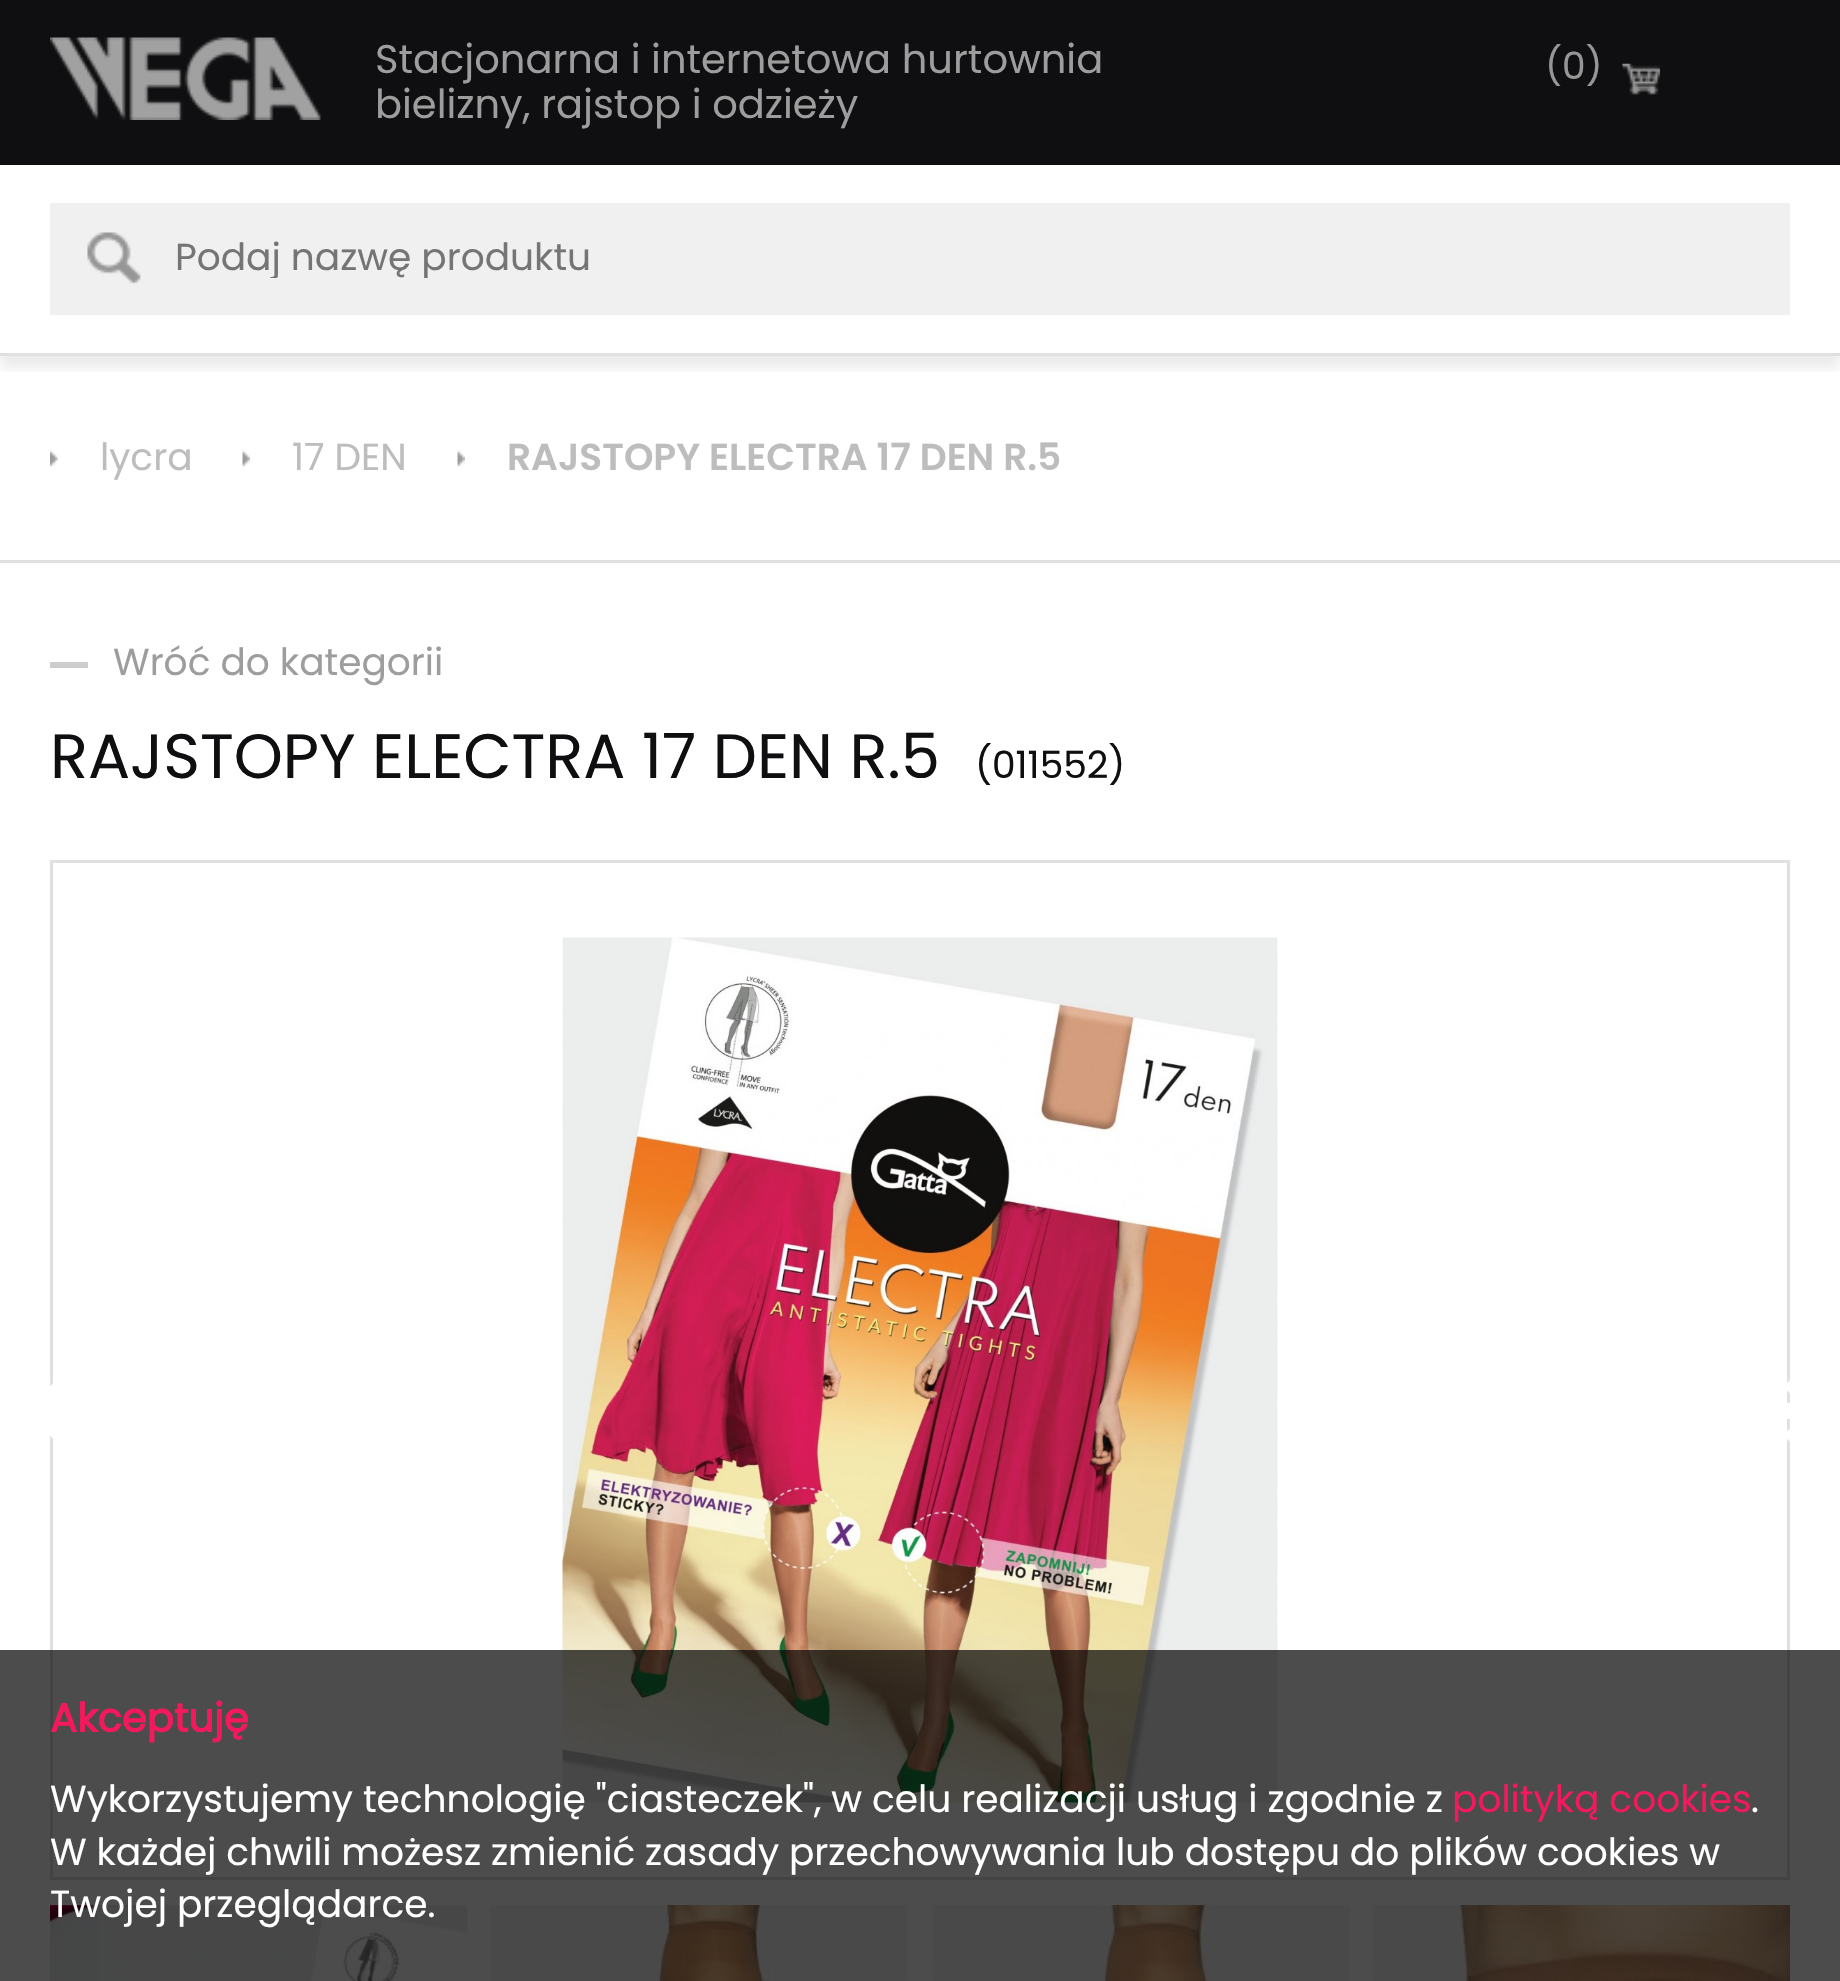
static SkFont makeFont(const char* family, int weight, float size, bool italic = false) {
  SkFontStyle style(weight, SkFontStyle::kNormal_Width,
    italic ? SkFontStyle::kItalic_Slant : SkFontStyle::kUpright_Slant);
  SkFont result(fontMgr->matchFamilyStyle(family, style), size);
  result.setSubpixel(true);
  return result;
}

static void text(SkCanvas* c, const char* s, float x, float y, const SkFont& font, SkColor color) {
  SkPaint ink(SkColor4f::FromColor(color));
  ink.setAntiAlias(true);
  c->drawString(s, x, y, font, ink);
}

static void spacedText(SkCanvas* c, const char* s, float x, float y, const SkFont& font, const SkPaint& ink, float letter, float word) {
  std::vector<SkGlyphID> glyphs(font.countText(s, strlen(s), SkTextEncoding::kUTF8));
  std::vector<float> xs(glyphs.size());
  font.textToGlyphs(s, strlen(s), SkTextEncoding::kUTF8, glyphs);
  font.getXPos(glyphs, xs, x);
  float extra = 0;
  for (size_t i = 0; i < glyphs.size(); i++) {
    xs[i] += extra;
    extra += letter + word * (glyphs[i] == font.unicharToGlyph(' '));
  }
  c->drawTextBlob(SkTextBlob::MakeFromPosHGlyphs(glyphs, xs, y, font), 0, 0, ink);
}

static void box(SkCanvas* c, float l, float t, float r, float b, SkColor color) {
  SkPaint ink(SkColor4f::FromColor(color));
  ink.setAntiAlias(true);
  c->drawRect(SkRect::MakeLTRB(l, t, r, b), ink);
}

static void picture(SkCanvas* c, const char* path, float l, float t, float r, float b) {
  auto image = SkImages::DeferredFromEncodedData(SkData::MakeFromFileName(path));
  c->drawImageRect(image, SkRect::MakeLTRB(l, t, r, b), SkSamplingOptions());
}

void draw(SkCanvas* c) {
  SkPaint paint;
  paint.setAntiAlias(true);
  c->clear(0xffffffff);
  c->save();
  c->clipRect(SkRect::MakeLTRB(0, 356, 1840, 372));
  paint.setColor(0x14000000);
  paint.setMaskFilter(SkMaskFilter::MakeBlur(kNormal_SkBlurStyle, 6));
  c->drawRect(SkRect::MakeLTRB(0, 13, 1840, 368), paint);
  paint.setMaskFilter(nullptr);
  c->restore();
  box(c, 0, 0, 1840, 165, 0xff0f0e10);
  picture(c, "img_01.png", 50, 37, 321, 120);
  SkFont face1 = makeFont("Poppins", 400, 40);
  text(c, "Stacjonarna i internetowa hurtownia", 375, 73, face1, 0xff9d9d9d);
  text(c, "bielizny, rajstop i odzieży", 375, 118, face1, 0xff9d9d9d);
  picture(c, "img_02.png", 1622, 63, 1660, 95);
  SkFont face2 = makeFont("Poppins", 400, 37.55f);
  text(c, "(0)", 1545, 79, face2, 0xff969696);
  box(c, 0, 353, 1840, 356, 0xffe0e0e0);
  box(c, 50, 203, 1790, 315, 0xfff0f0f0);
  picture(c, "img_03.png", 87, 232, 141, 284);
  c->save();
  c->clipRect(SkRect::MakeLTRB(175, 240, 1790, 278));
  text(c, "Podaj nazwę produktu", 175, 270, face2, 0xff757575);
  c->restore();
  box(c, 0, 560, 1840, 563, 0xffe0e0e0);
  picture(c, "img_04.png", 50, 450, 58, 468);
  text(c, "lycra", 100, 470, face2, 0xffbdbdbd);
  picture(c, "img_05.png", 242, 450, 250, 468);
  text(c, "17 DEN", 292, 470, face2, 0xffbdbdbd);
  picture(c, "img_05.png", 457, 450, 465, 468);
  SkFont face3 = makeFont("Poppins", 600, 37.55f);
  text(c, "RAJSTOPY ELECTRA 17 DEN R.5", 507, 470, face3, 0xffbdbdbd);
  text(c, "Wróć do kategorii", 113, 675, face2, 0xff9d9d9d);
  box(c, 50, 662, 88, 668, 0xffcdcdcd);
  SkFont face4 = makeFont("Poppins", 400, 62.5f);
  text(c, "RAJSTOPY ELECTRA 17 DEN R.5", 50, 778, face4, 0xff0f0e10);
  text(c, "(011552)", 975, 778, face2, 0xff0f0e10);
  paint.setStyle(SkPaint::kStroke_Style);
  paint.setStrokeWidth(3);
  paint.setColor(0xffe0e0e0);
  c->drawRect(SkRect::MakeLTRB(51.5f, 861.5f, 1788.5f, 1878.5f), paint);
  picture(c, "img_06.png", 562, 937, 1278, 1803);
  picture(c, "img_07.png", 50, 1383, 53, 1438);
  picture(c, "img_08.png", 1787, 1380, 1790, 1442);
  picture(c, "img_09.png", 50, 1905, 468, 1981);
  picture(c, "img_10.png", 490, 1905, 908, 1981);
  picture(c, "img_11.png", 932, 1905, 1350, 1981);
  picture(c, "img_12.png", 1372, 1905, 1790, 1981);
  box(c, 0, 1650, 1840, 1981, 0xb3000000);
  SkFont face5 = makeFont("Poppins", 700, 40);
  text(c, "Akceptuję", 50, 1732, face5, 0xfff3195c);
  paint.setStyle(SkPaint::kFill_Style);
  paint.setColor(0xffffffff);
  spacedText(c, "Wykorzystujemy technologię \"ciasteczek\", w celu realizacji usług i zgodnie z", 50, 1812, face2, paint, 0, -0.1f);
  text(c, "polityką cookies", 1452, 1812, face2, 0xfff3195c);
  text(c, ".", 1751, 1812, face2, 0xffffffff);
  spacedText(c, "W każdej chwili możesz zmienić zasady przechowywania lub dostępu do plików cookies w", 50, 1865, face2, paint, 0, -0.1f);
  text(c, "Twojej przeglądarce.", 50, 1917, face2, 0xffffffff);
}
